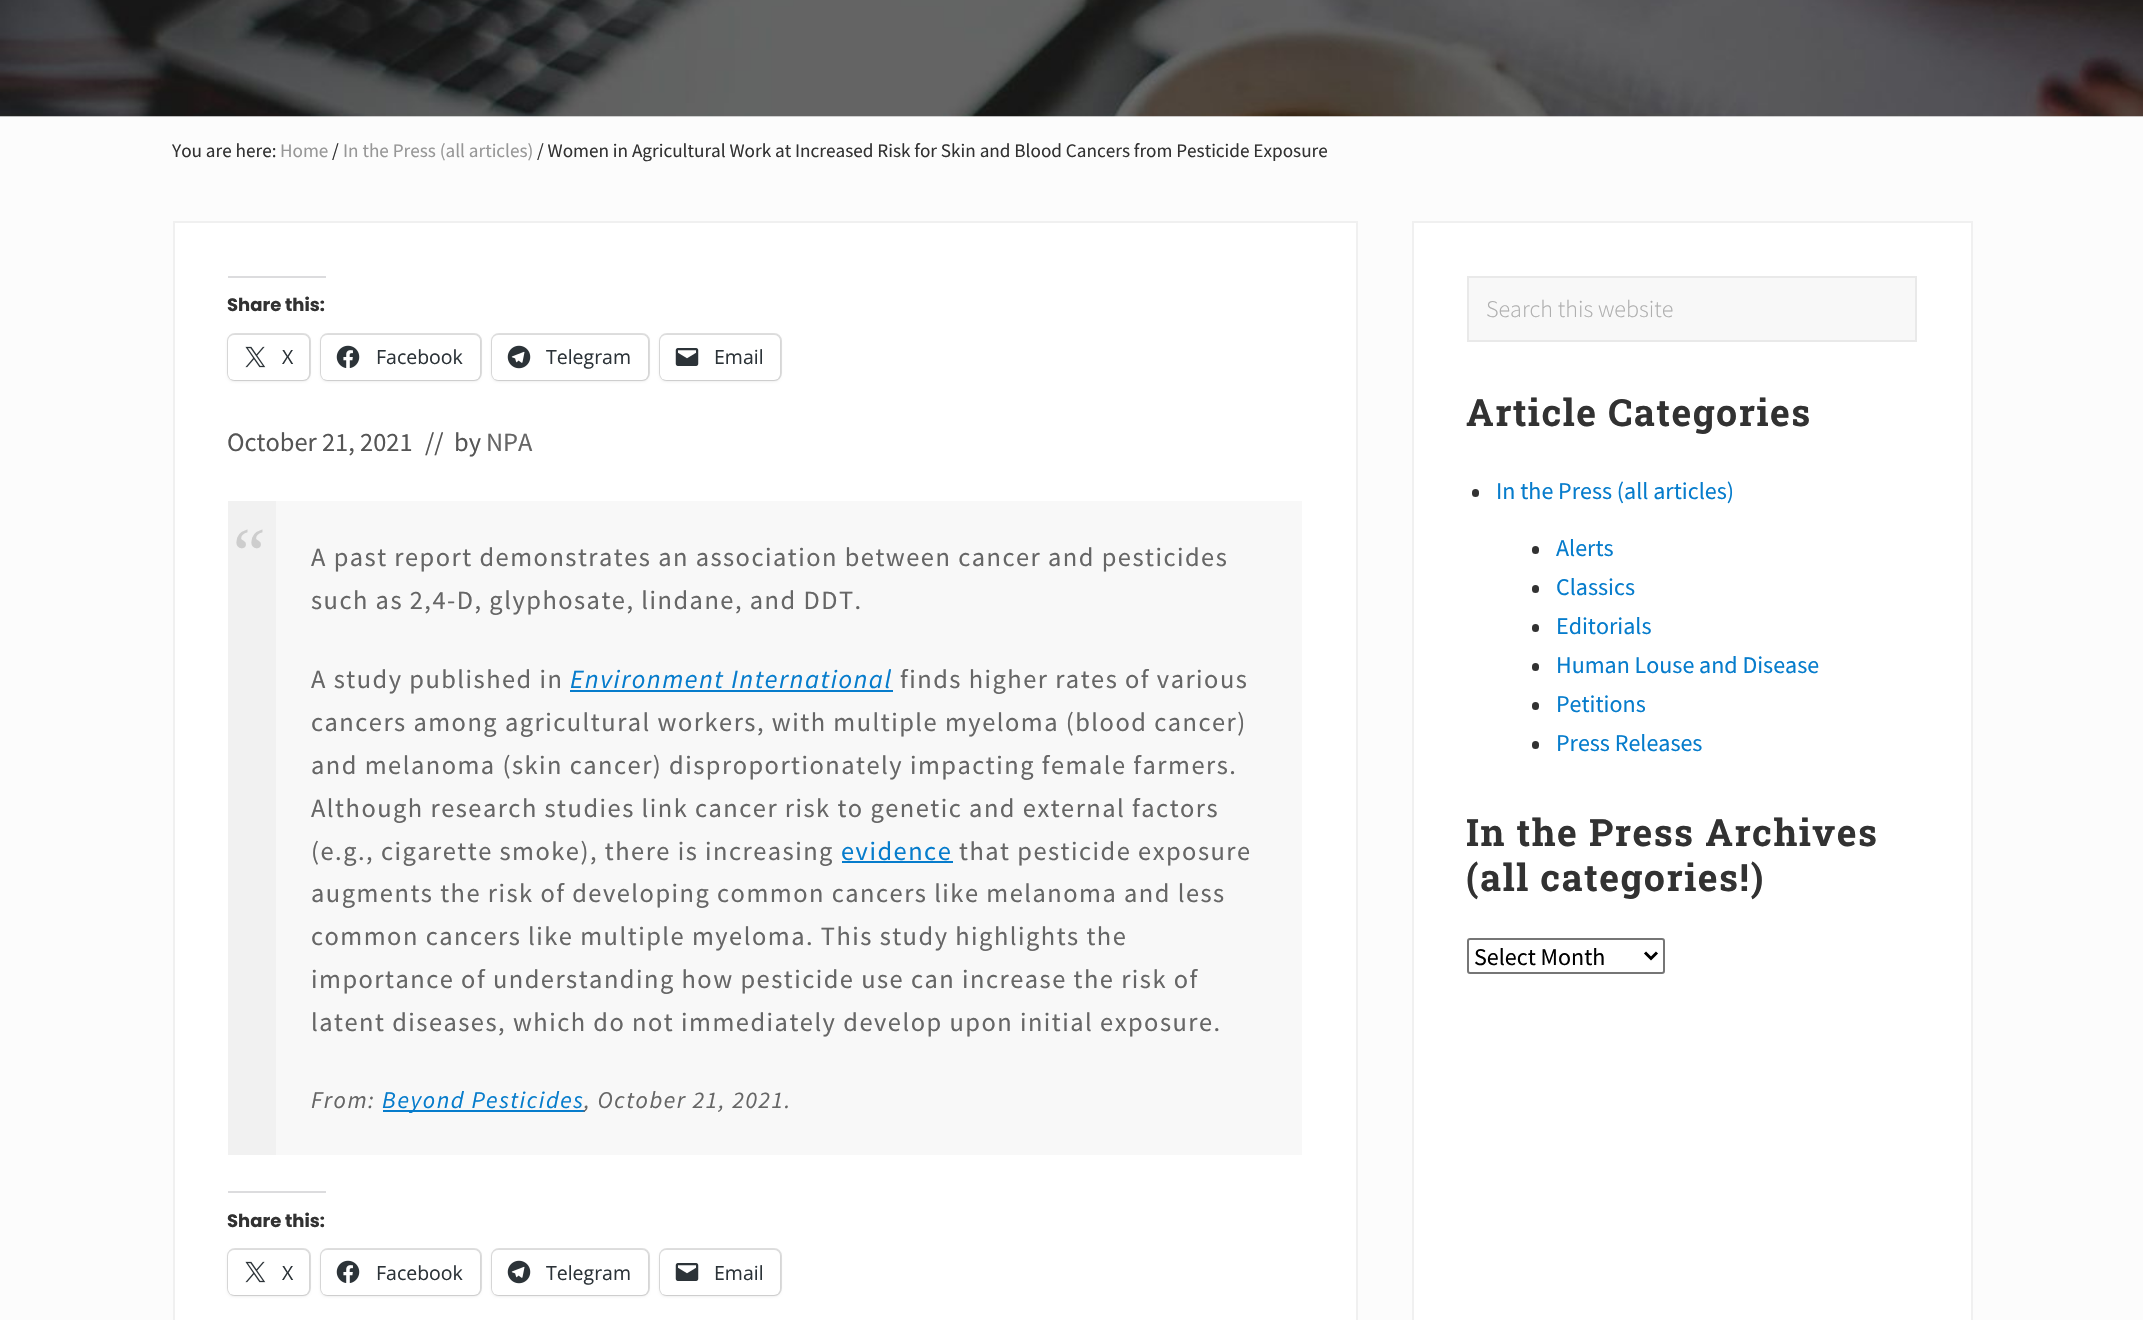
static SkFont makeFont(const char* family, int weight, float size, bool italic = false) {
  SkFontStyle style(weight, SkFontStyle::kNormal_Width,
    italic ? SkFontStyle::kItalic_Slant : SkFontStyle::kUpright_Slant);
  SkFont result(fontMgr->matchFamilyStyle(family, style), size);
  result.setSubpixel(true);
  return result;
}

static void text(SkCanvas* c, const char* s, float x, float y, const SkFont& font, SkColor color) {
  SkPaint ink(SkColor4f::FromColor(color));
  ink.setAntiAlias(true);
  c->drawString(s, x, y, font, ink);
}

static void spacedText(SkCanvas* c, const char* s, float x, float y, const SkFont& font, const SkPaint& ink, float letter, float word) {
  std::vector<SkGlyphID> glyphs(font.countText(s, strlen(s), SkTextEncoding::kUTF8));
  std::vector<float> xs(glyphs.size());
  font.textToGlyphs(s, strlen(s), SkTextEncoding::kUTF8, glyphs);
  font.getXPos(glyphs, xs, x);
  float extra = 0;
  for (size_t i = 0; i < glyphs.size(); i++) {
    xs[i] += extra;
    extra += letter + word * (glyphs[i] == font.unicharToGlyph(' '));
  }
  c->drawTextBlob(SkTextBlob::MakeFromPosHGlyphs(glyphs, xs, y, font), 0, 0, ink);
}

static void box(SkCanvas* c, float l, float t, float r, float b, SkColor color) {
  SkPaint ink(SkColor4f::FromColor(color));
  ink.setAntiAlias(true);
  c->drawRect(SkRect::MakeLTRB(l, t, r, b), ink);
}

static void roundBox(SkCanvas* c, float l, float t, float r, float b, float radius, SkColor color) {
  SkPaint ink(SkColor4f::FromColor(color));
  ink.setAntiAlias(true);
  c->drawRoundRect(SkRect::MakeLTRB(l, t, r, b), radius, radius, ink);
}

static void picture(SkCanvas* c, const char* path, float l, float t, float r, float b) {
  auto image = SkImages::DeferredFromEncodedData(SkData::MakeFromFileName(path));
  c->drawImageRect(image, SkRect::MakeLTRB(l, t, r, b), SkSamplingOptions());
}

void draw(SkCanvas* c) {
  SkPaint paint;
  paint.setAntiAlias(true);
  c->clear(0xfffcfcfc);
  box(c, 0, 116, 2143, 117, 0xfff1f1f1);
  picture(c, "img_01.png", 0, 0, 2143, 117);
  SkFont face1 = makeFont("Source Sans Pro", 400, 19.2f);
  text(c, "You are here:", 172, 157, face1, 0xff323232);
  text(c, "Home", 280, 157, face1, 0xff979797);
  text(c, "/", 332, 157, face1, 0xff323232);
  text(c, "In the Press (all articles)", 343, 157, face1, 0xff979797);
  text(c, "/ Women in Agricultural Work at Increased Risk for Skin and Blood Cancers from Pesticide Exposure", 537, 157, face1, 0xff323232);
  paint.setColor(0xffffffff);
  c->drawRect(SkRect::MakeLTRB(174, 222, 1357, 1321), paint);
  paint.setStyle(SkPaint::kStroke_Style);
  paint.setStrokeWidth(2);
  paint.setColor(0xfff0f0f0);
  c->drawRect(SkRect::MakeLTRB(174, 222, 1357, 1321), paint);
  box(c, 228, 276, 326, 278, 0xffdcdcde);
  SkFont face2 = makeFont("Poppins", 700, 18);
  text(c, "Share this:", 227, 311, face2, 0xff323232);
  paint.setColor(0xffe0e0e0);
  c->drawRoundRect(SkRect::MakeLTRB(228, 334, 310, 380), 7, 7, paint);
  paint.setStyle(SkPaint::kFill_Style);
  paint.setColor(0x1f000000);
  paint.setMaskFilter(SkMaskFilter::MakeBlur(kNormal_SkBlurStyle, 1.5f));
  c->drawRoundRect(SkRect::MakeLTRB(228, 336, 309, 381), 6, 6, paint);
  paint.setMaskFilter(nullptr);
  roundBox(c, 228, 335, 309, 380, 6, 0xffffffff);
  picture(c, "img_02.png", 245, 346, 266, 368);
  SkFont face3 = makeFont("Open Sans", 400, 19.5f);
  text(c, "X", 282, 364, face3, 0xff2c3338);
  paint.setStyle(SkPaint::kStroke_Style);
  paint.setColor(0xffe0e0e0);
  c->drawRoundRect(SkRect::MakeLTRB(321, 334, 481, 380), 7, 7, paint);
  paint.setStyle(SkPaint::kFill_Style);
  paint.setColor(0x1f000000);
  paint.setMaskFilter(SkMaskFilter::MakeBlur(kNormal_SkBlurStyle, 1.5f));
  c->drawRoundRect(SkRect::MakeLTRB(321, 336, 480, 381), 6, 6, paint);
  paint.setMaskFilter(nullptr);
  roundBox(c, 321, 335, 480, 380, 6, 0xffffffff);
  picture(c, "img_03.png", 336, 345, 360, 368);
  text(c, "Facebook", 376, 364, face3, 0xff2c3338);
  paint.setStyle(SkPaint::kStroke_Style);
  paint.setColor(0xffe0e0e0);
  c->drawRoundRect(SkRect::MakeLTRB(492, 334, 649, 380), 7, 7, paint);
  paint.setStyle(SkPaint::kFill_Style);
  paint.setColor(0x1f000000);
  paint.setMaskFilter(SkMaskFilter::MakeBlur(kNormal_SkBlurStyle, 1.5f));
  c->drawRoundRect(SkRect::MakeLTRB(492, 336, 648, 381), 6, 6, paint);
  paint.setMaskFilter(nullptr);
  roundBox(c, 492, 335, 648, 380, 6, 0xffffffff);
  picture(c, "img_04.png", 507, 345, 531, 369);
  text(c, "Telegram", 546, 364, face3, 0xff2c3338);
  paint.setStyle(SkPaint::kStroke_Style);
  paint.setColor(0xffe0e0e0);
  c->drawRoundRect(SkRect::MakeLTRB(660, 334, 781, 380), 7, 7, paint);
  paint.setStyle(SkPaint::kFill_Style);
  paint.setColor(0x1f000000);
  paint.setMaskFilter(SkMaskFilter::MakeBlur(kNormal_SkBlurStyle, 1.5f));
  c->drawRoundRect(SkRect::MakeLTRB(660, 336, 780, 381), 6, 6, paint);
  paint.setMaskFilter(nullptr);
  roundBox(c, 660, 335, 780, 380, 6, 0xffffffff);
  picture(c, "img_05.png", 675, 348, 699, 366);
  text(c, "Email", 714, 364, face3, 0xff2c3338);
  SkFont face4 = makeFont("Source Sans Pro", 400, 26.4f);
  text(c, "October 21, 2021", 227, 451, face4, 0xff555555);
  text(c, "//  by", 425, 451, face4, 0xff555555);
  text(c, "NPA", 486, 451, face4, 0xff666666);
  box(c, 276, 501, 1302, 1155, 0xfff8f8f8);
  box(c, 228, 501, 276, 1155, 0xfff1f1f1);
  SkFont face5 = makeFont("Liberation Serif", 400, 73);
  paint.setColor(0xffcdcdcd);
  spacedText(c, "“", 233, 578, face5, paint, 1.5f, 0);
  paint.setColor(0xff666666);
  spacedText(c, "A past report demonstrates an association between cancer and pesticides", 311, 566, face4, paint, 1.5f, 0);
  spacedText(c, "such as 2,4-D, glyphosate, lindane, and DDT.", 311, 609, face4, paint, 1.5f, 0);
  spacedText(c, "A study published in", 311, 688, face4, paint, 1.5f, 0);
  SkFont face6 = makeFont("Source Sans Pro", 400, 26.4f, true);
  paint.setColor(0xff067ccc);
  spacedText(c, "Environment International", 570, 688, face6, paint, 1.5f, 0);
  box(c, 570, 690, 893, 692, 0xff067ccc);
  paint.setColor(0xff666666);
  spacedText(c, "finds higher rates of various", 900, 688, face4, paint, 1.5f, 0);
  spacedText(c, "cancers among agricultural workers, with multiple myeloma (blood cancer)", 311, 731, face4, paint, 1.5f, 0);
  spacedText(c, "and melanoma (skin cancer) disproportionately impacting female farmers.", 311, 774, face4, paint, 1.5f, 0);
  spacedText(c, "Although research studies link cancer risk to genetic and external factors", 311, 817, face4, paint, 1.5f, 0);
  spacedText(c, "(e.g., cigarette smoke), there is increasing", 311, 860, face4, paint, 1.5f, 0);
  paint.setColor(0xff067ccc);
  spacedText(c, "evidence", 841, 860, face4, paint, 1.5f, 0);
  box(c, 842, 861, 953, 863, 0xff067ccc);
  paint.setColor(0xff666666);
  spacedText(c, "that pesticide exposure", 959, 860, face4, paint, 1.5f, 0);
  spacedText(c, "augments the risk of developing common cancers like melanoma and less", 311, 902, face4, paint, 1.5f, 0);
  spacedText(c, "common cancers like multiple myeloma. This study highlights the", 311, 945, face4, paint, 1.5f, 0);
  spacedText(c, "importance of understanding how pesticide use can increase the risk of", 311, 988, face4, paint, 1.5f, 0);
  spacedText(c, "latent diseases, which do not immediately develop upon initial exposure.", 311, 1031, face4, paint, 1.5f, 0);
  SkFont face7 = makeFont("Source Sans Pro", 400, 24, true);
  spacedText(c, "From:", 311, 1108, face7, paint, 1.5f, 0);
  box(c, 383, 1110, 585, 1112, 0xff067ccc);
  paint.setColor(0xff067ccc);
  spacedText(c, "Beyond Pesticides", 382, 1108, face7, paint, 1.5f, 0);
  paint.setColor(0xff666666);
  spacedText(c, ", October 21, 2021.", 584, 1108, face7, paint, 1.5f, 0);
  box(c, 228, 1191, 326, 1193, 0xffdcdcde);
  text(c, "Share this:", 227, 1227, face2, 0xff323232);
  paint.setStyle(SkPaint::kStroke_Style);
  paint.setColor(0xffe0e0e0);
  c->drawRoundRect(SkRect::MakeLTRB(228, 1249, 310, 1295), 7, 7, paint);
  paint.setStyle(SkPaint::kFill_Style);
  paint.setColor(0x1f000000);
  paint.setMaskFilter(SkMaskFilter::MakeBlur(kNormal_SkBlurStyle, 1.5f));
  c->drawRoundRect(SkRect::MakeLTRB(228, 1251, 309, 1296), 6, 6, paint);
  paint.setMaskFilter(nullptr);
  roundBox(c, 228, 1250, 309, 1295, 6, 0xffffffff);
  picture(c, "img_02.png", 245, 1261, 266, 1283);
  text(c, "X", 282, 1280, face3, 0xff2c3338);
  paint.setStyle(SkPaint::kStroke_Style);
  paint.setColor(0xffe0e0e0);
  c->drawRoundRect(SkRect::MakeLTRB(321, 1249, 481, 1295), 7, 7, paint);
  paint.setStyle(SkPaint::kFill_Style);
  paint.setColor(0x1f000000);
  paint.setMaskFilter(SkMaskFilter::MakeBlur(kNormal_SkBlurStyle, 1.5f));
  c->drawRoundRect(SkRect::MakeLTRB(321, 1251, 480, 1296), 6, 6, paint);
  paint.setMaskFilter(nullptr);
  roundBox(c, 321, 1250, 480, 1295, 6, 0xffffffff);
  picture(c, "img_03.png", 336, 1260, 360, 1283);
  text(c, "Facebook", 376, 1280, face3, 0xff2c3338);
  paint.setStyle(SkPaint::kStroke_Style);
  paint.setColor(0xffe0e0e0);
  c->drawRoundRect(SkRect::MakeLTRB(492, 1249, 649, 1295), 7, 7, paint);
  paint.setStyle(SkPaint::kFill_Style);
  paint.setColor(0x1f000000);
  paint.setMaskFilter(SkMaskFilter::MakeBlur(kNormal_SkBlurStyle, 1.5f));
  c->drawRoundRect(SkRect::MakeLTRB(492, 1251, 648, 1296), 6, 6, paint);
  paint.setMaskFilter(nullptr);
  roundBox(c, 492, 1250, 648, 1295, 6, 0xffffffff);
  picture(c, "img_04.png", 507, 1260, 531, 1284);
  text(c, "Telegram", 546, 1280, face3, 0xff2c3338);
  paint.setStyle(SkPaint::kStroke_Style);
  paint.setColor(0xffe0e0e0);
  c->drawRoundRect(SkRect::MakeLTRB(660, 1249, 781, 1295), 7, 7, paint);
  paint.setStyle(SkPaint::kFill_Style);
  paint.setColor(0x1f000000);
  paint.setMaskFilter(SkMaskFilter::MakeBlur(kNormal_SkBlurStyle, 1.5f));
  c->drawRoundRect(SkRect::MakeLTRB(660, 1251, 780, 1296), 6, 6, paint);
  paint.setMaskFilter(nullptr);
  roundBox(c, 660, 1250, 780, 1295, 6, 0xffffffff);
  picture(c, "img_05.png", 675, 1263, 699, 1281);
  text(c, "Email", 714, 1280, face3, 0xff2c3338);
  paint.setColor(0xffffffff);
  c->drawRect(SkRect::MakeLTRB(1413, 222, 1972, 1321), paint);
  paint.setStyle(SkPaint::kStroke_Style);
  paint.setColor(0xfff0f0f0);
  c->drawRect(SkRect::MakeLTRB(1413, 222, 1972, 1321), paint);
  paint.setStyle(SkPaint::kFill_Style);
  paint.setColor(0xfff8f8f8);
  c->drawRect(SkRect::MakeLTRB(1468, 277, 1916, 341), paint);
  paint.setStyle(SkPaint::kStroke_Style);
  paint.setColor(0xffe9e9e9);
  c->drawRect(SkRect::MakeLTRB(1468, 277, 1916, 341), paint);
  SkFont face8 = makeFont("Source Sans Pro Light", 300, 24);
  text(c, "Search this website", 1486, 317, face8, 0xffaeaeae);
  SkFont face9 = makeFont("Roboto Slab", 700, 37.5f);
  paint.setStyle(SkPaint::kFill_Style);
  paint.setColor(0xff323232);
  spacedText(c, "Article Categories", 1466, 426, face9, paint, 1.5f, 0);
  roundBox(c, 1472, 489, 1479, 497, 3.5f, 0xff323232);
  SkFont face10 = makeFont("Source Sans Pro", 400, 24);
  text(c, "In the Press (all articles)", 1496, 499, face10, 0xff067ccc);
  roundBox(c, 1532, 546, 1539, 554, 3.5f, 0xff323232);
  text(c, "Alerts", 1556, 556, face10, 0xff067ccc);
  roundBox(c, 1532, 585, 1539, 593, 3.5f, 0xff323232);
  text(c, "Classics", 1556, 595, face10, 0xff067ccc);
  roundBox(c, 1532, 624, 1539, 632, 3.5f, 0xff323232);
  text(c, "Editorials", 1556, 634, face10, 0xff067ccc);
  roundBox(c, 1532, 663, 1539, 671, 3.5f, 0xff323232);
  text(c, "Human Louse and Disease", 1556, 673, face10, 0xff067ccc);
  roundBox(c, 1532, 702, 1539, 710, 3.5f, 0xff323232);
  text(c, "Petitions", 1556, 712, face10, 0xff067ccc);
  roundBox(c, 1532, 741, 1539, 749, 3.5f, 0xff323232);
  text(c, "Press Releases", 1556, 751, face10, 0xff067ccc);
  spacedText(c, "In the Press Archives", 1466, 846, face9, paint, 1.5f, 0);
  spacedText(c, "(all categories!)", 1466, 891, face9, paint, 1.5f, 0);
  paint.setStyle(SkPaint::kStroke_Style);
  paint.setColor(0xff767676);
  c->drawRoundRect(SkRect::MakeLTRB(1468, 939, 1664, 973), 2, 2, paint);
  paint.setStrokeWidth(3);
  paint.setColor(0xff000000);
  c->drawPath(SkPathBuilder().moveTo(1645, 952.5f).lineTo(1651, 958.5f).lineTo(1657, 952.5f).detach(), paint);
  text(c, "Select Month", 1474, 965, face10, 0xff000000);
}
